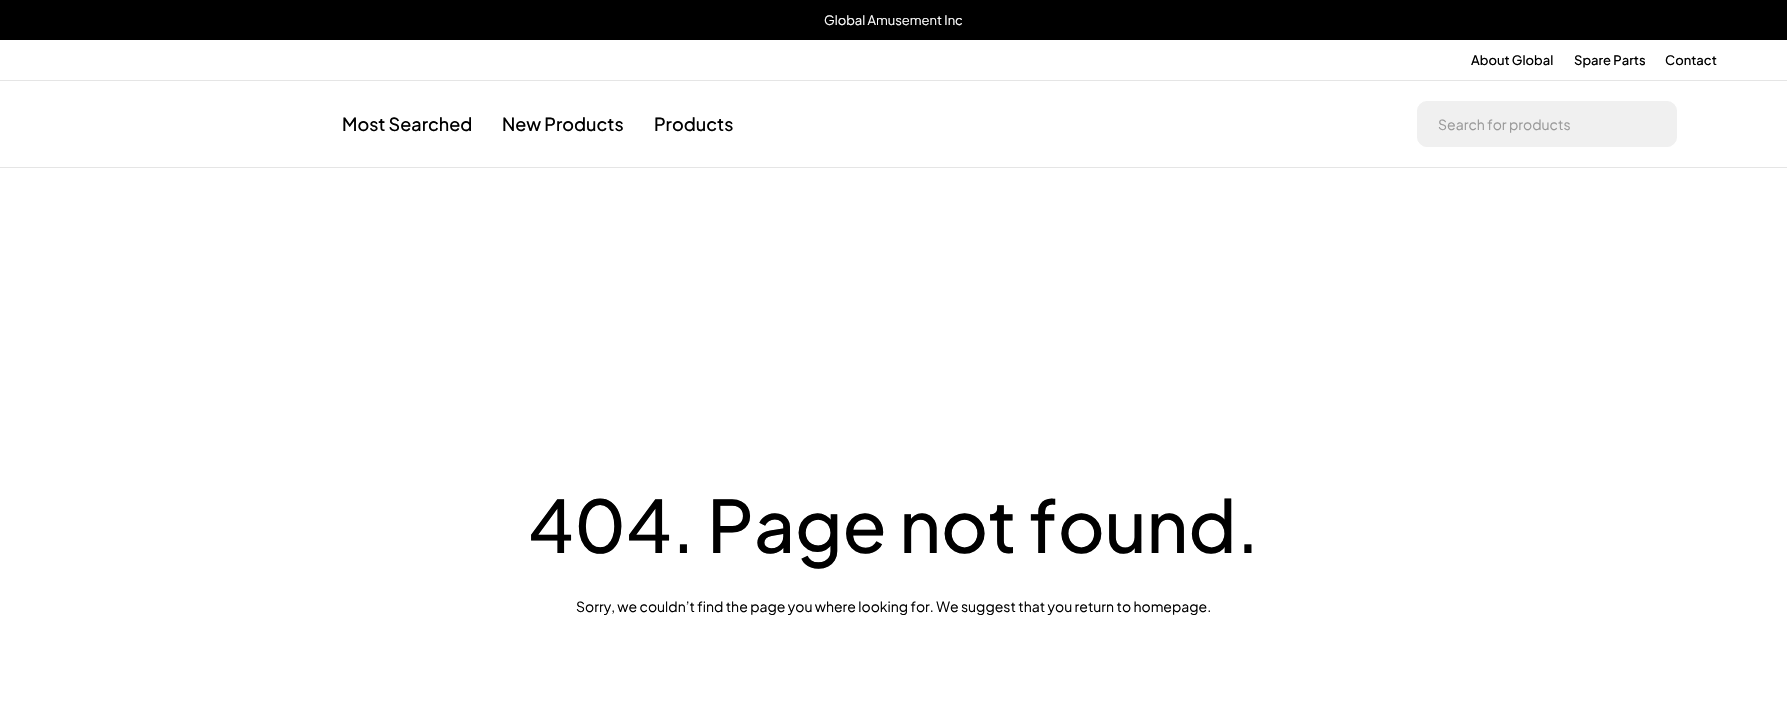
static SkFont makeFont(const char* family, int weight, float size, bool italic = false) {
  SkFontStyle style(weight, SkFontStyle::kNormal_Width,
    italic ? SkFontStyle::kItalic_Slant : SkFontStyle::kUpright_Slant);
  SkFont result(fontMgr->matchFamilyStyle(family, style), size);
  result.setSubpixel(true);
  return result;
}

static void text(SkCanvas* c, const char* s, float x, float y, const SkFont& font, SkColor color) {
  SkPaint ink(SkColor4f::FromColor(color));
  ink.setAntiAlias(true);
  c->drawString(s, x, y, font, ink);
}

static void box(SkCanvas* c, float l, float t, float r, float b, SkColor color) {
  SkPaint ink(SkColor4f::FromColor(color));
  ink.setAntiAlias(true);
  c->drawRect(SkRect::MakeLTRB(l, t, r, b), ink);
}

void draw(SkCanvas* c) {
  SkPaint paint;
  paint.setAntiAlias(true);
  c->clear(0xffffffff);
  box(c, 0, 0, 1787, 40, 0xff000000);
  SkFont face1 = makeFont("Plus Jakarta Sans", 400, 13);
  text(c, "Global Amusement Inc", 824, 25, face1, 0xffffffff);
  box(c, 0, 80, 1787, 81, 0xffe5e5e5);
  SkFont face2 = makeFont("Plus Jakarta Sans", 500, 13);
  text(c, "About Global", 1471, 65, face2, 0xff000000);
  text(c, "Spare Parts", 1574, 65, face2, 0xff000000);
  text(c, "Contact", 1665, 65, face2, 0xff000000);
  SkFont face3 = makeFont("Plus Jakarta Sans", 500, 18);
  text(c, "Most Searched", 342, 131, face3, 0xff000000);
  text(c, "New Products", 502, 131, face3, 0xff000000);
  text(c, "Products", 654, 131, face3, 0xff000000);
  paint.setColor(0xfff0f0f0);
  c->drawRoundRect(SkRect::MakeLTRB(1417.5f, 101.5f, 1676.5f, 146.5f), 9.5f, 9.5f, paint);
  paint.setStyle(SkPaint::kStroke_Style);
  paint.setStrokeWidth(1);
  c->drawRoundRect(SkRect::MakeLTRB(1417.5f, 101.5f, 1676.5f, 146.5f), 9.5f, 9.5f, paint);
  SkFont face4 = makeFont("Plus Jakarta Sans", 400, 14);
  text(c, "Search for products", 1438, 130, face4, 0xff999999);
  box(c, 0, 167, 1787, 168, 0xffe5e5e5);
  SkFont face5 = makeFont("Plus Jakarta Sans", 500, 72);
  text(c, "404. Page not found.", 528, 553, face5, 0xff000000);
  text(c, "Sorry, we couldn’t find the page you where looking for. We suggest that you return to homepage.", 576, 612, face4, 0xff000000);
}
